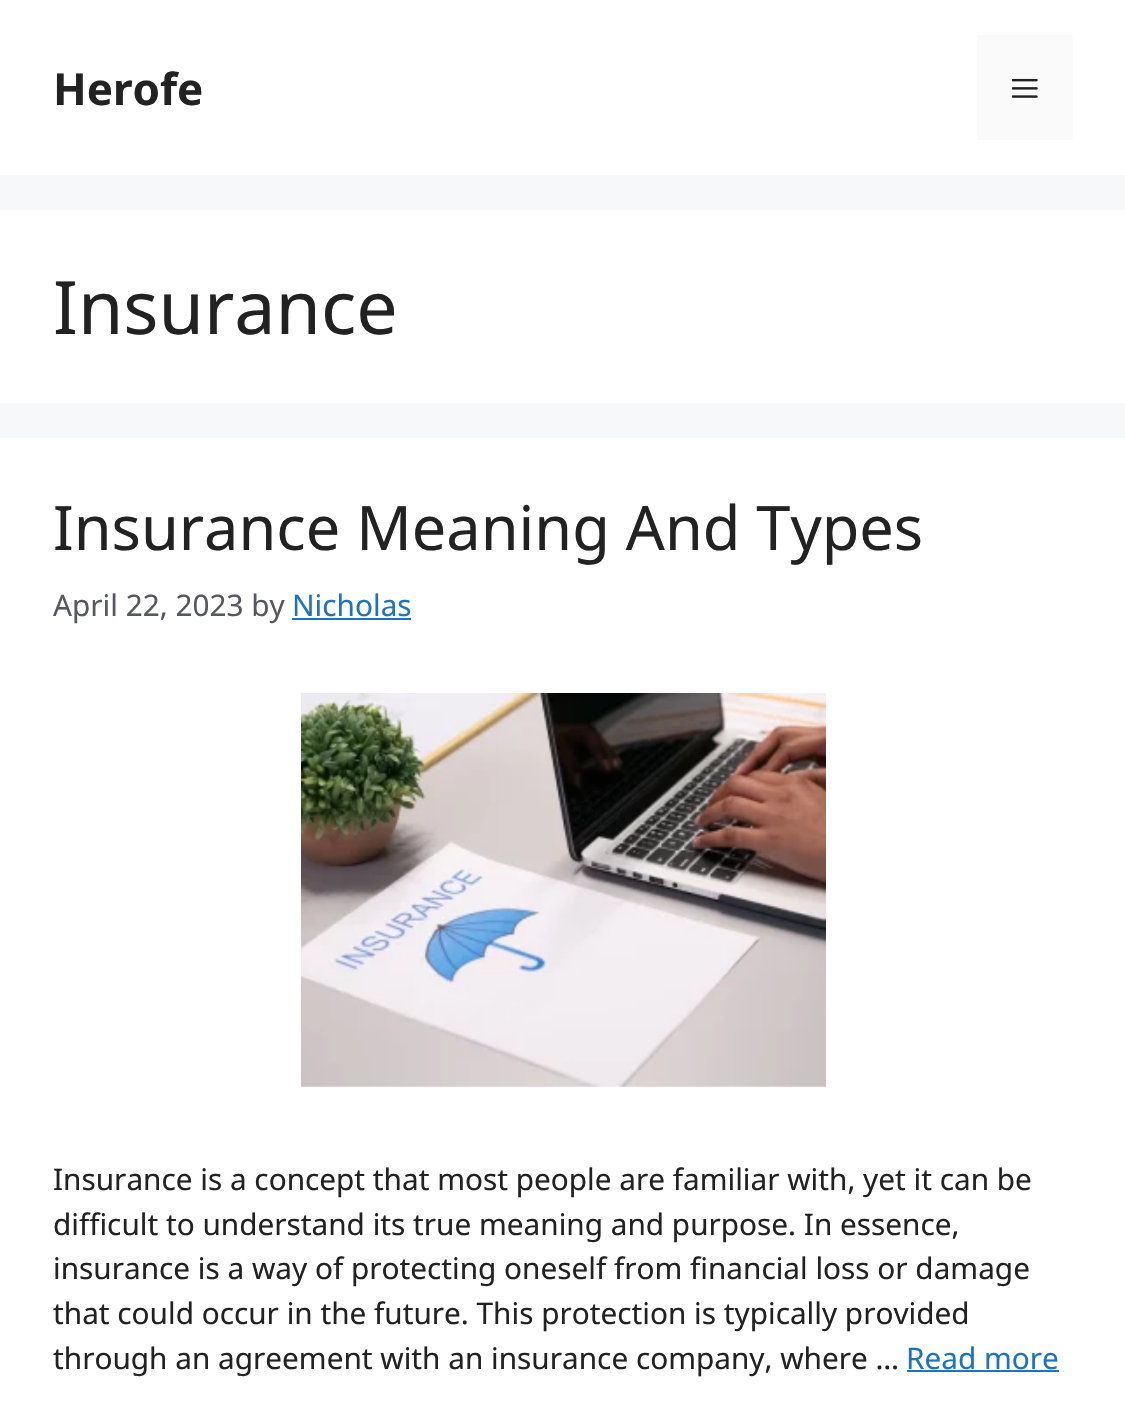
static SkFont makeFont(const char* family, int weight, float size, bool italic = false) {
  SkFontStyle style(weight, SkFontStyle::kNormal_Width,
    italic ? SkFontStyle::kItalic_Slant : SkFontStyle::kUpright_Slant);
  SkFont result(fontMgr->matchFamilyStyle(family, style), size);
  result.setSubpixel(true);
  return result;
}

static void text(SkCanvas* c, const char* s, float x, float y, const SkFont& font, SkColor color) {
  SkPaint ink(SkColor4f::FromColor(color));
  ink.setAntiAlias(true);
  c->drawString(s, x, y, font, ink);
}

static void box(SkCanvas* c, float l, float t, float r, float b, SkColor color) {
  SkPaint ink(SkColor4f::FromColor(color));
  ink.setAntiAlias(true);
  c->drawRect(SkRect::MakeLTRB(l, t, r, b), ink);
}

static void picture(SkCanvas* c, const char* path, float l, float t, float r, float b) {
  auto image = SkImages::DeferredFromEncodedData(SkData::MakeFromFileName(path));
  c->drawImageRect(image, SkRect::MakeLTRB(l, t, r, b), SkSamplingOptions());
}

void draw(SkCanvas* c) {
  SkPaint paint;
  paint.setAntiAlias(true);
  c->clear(0xfff7f8f9);
  box(c, 0, 0, 1125, 175, 0xffffffff);
  SkFont face1 = makeFont("Noto Sans", 700, 44);
  text(c, "Herofe", 53, 105, face1, 0xff222222);
  box(c, 977, 35, 1073, 140, 0xfffafafa);
  picture(c, "img_01.png", 1012, 78, 1038, 98);
  box(c, 0, 210, 1125, 403, 0xffffffff);
  SkFont face2 = makeFont("Noto Sans", 400, 73.5f);
  text(c, "Insurance", 53, 334, face2, 0xff222222);
  box(c, 0, 438, 1125, 1407, 0xffffffff);
  SkFont face3 = makeFont("Noto Sans", 400, 61.25f);
  text(c, "Insurance Meaning And Types", 53, 550, face3, 0xff222222);
  SkFont face4 = makeFont("Noto Sans", 400, 29.75f);
  text(c, "April 22, 2023 by", 53, 616, face4, 0xff575760);
  text(c, "Nicholas", 292, 616, face4, 0xff1e73be);
  box(c, 292, 618, 411, 620, 0xff1e73be);
  picture(c, "img_02.png", 301, 693, 826, 1087);
  text(c, "Insurance is a concept that most people are familiar with, yet it can be", 53, 1190, face4, 0xff222222);
  text(c, "difficult to understand its true meaning and purpose. In essence,", 53, 1235, face4, 0xff222222);
  text(c, "insurance is a way of protecting oneself from financial loss or damage", 53, 1279, face4, 0xff222222);
  text(c, "that could occur in the future. This protection is typically provided", 53, 1324, face4, 0xff222222);
  text(c, "through an agreement with an insurance company, where …", 53, 1369, face4, 0xff222222);
  text(c, "Read more", 906, 1369, face4, 0xff1e73be);
  box(c, 907, 1370, 1059, 1372, 0xff1e73be);
}
